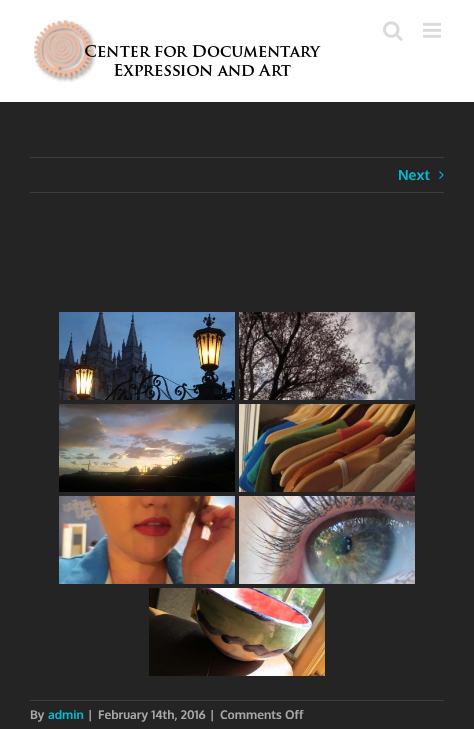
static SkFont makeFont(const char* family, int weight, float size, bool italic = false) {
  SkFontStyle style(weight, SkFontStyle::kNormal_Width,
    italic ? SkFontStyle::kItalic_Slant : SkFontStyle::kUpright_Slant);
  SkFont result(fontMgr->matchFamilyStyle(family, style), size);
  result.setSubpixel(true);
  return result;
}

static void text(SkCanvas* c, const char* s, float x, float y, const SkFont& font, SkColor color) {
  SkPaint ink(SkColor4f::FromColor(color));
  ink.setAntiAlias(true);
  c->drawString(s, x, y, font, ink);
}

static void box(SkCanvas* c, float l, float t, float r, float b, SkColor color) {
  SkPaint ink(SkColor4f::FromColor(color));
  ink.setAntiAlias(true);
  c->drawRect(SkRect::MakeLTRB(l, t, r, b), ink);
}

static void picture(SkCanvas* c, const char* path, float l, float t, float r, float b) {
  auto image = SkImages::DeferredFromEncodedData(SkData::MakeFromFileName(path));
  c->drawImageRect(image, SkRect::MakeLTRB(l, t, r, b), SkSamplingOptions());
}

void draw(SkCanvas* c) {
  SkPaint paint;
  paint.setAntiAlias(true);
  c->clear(0xff242424);
  box(c, 0, 0, 474, 102, 0xffffffff);
  picture(c, "img_01.png", 34, 20, 321, 82);
  picture(c, "img_02.png", 383, 21, 403, 41);
  picture(c, "img_03.png", 423, 22, 441, 38);
  box(c, 30, 157, 444, 158, 0xff3e3e3e);
  box(c, 30, 192, 444, 193, 0xff3e3e3e);
  SkFont face1 = makeFont("Oxygen", 700, 14);
  text(c, "Next", 398, 180, face1, 0xff00bcd4);
  picture(c, "img_04.png", 439, 171, 444, 179);
  picture(c, "img_05.png", 59, 312, 235, 400);
  picture(c, "img_06.png", 239, 312, 415, 400);
  picture(c, "img_07.png", 59, 404, 235, 492);
  picture(c, "img_08.png", 239, 404, 415, 492);
  picture(c, "img_09.png", 59, 496, 235, 584);
  picture(c, "img_10.png", 239, 496, 415, 584);
  picture(c, "img_11.png", 149, 588, 325, 676);
  box(c, 30, 700, 444, 701, 0xff3e3e3e);
  SkFont face2 = makeFont("Oxygen", 700, 12);
  text(c, "By", 30, 719, face2, 0xffaaa9a9);
  text(c, "admin", 48, 719, face2, 0xff00bcd4);
  text(c, "|", 88, 719, face2, 0xffaaa9a9);
  text(c, "February 14th, 2016", 98, 719, face2, 0xffaaa9a9);
  text(c, "|", 210, 719, face2, 0xffaaa9a9);
  text(c, "Comments Off", 220, 719, face2, 0xffaaa9a9);
}
